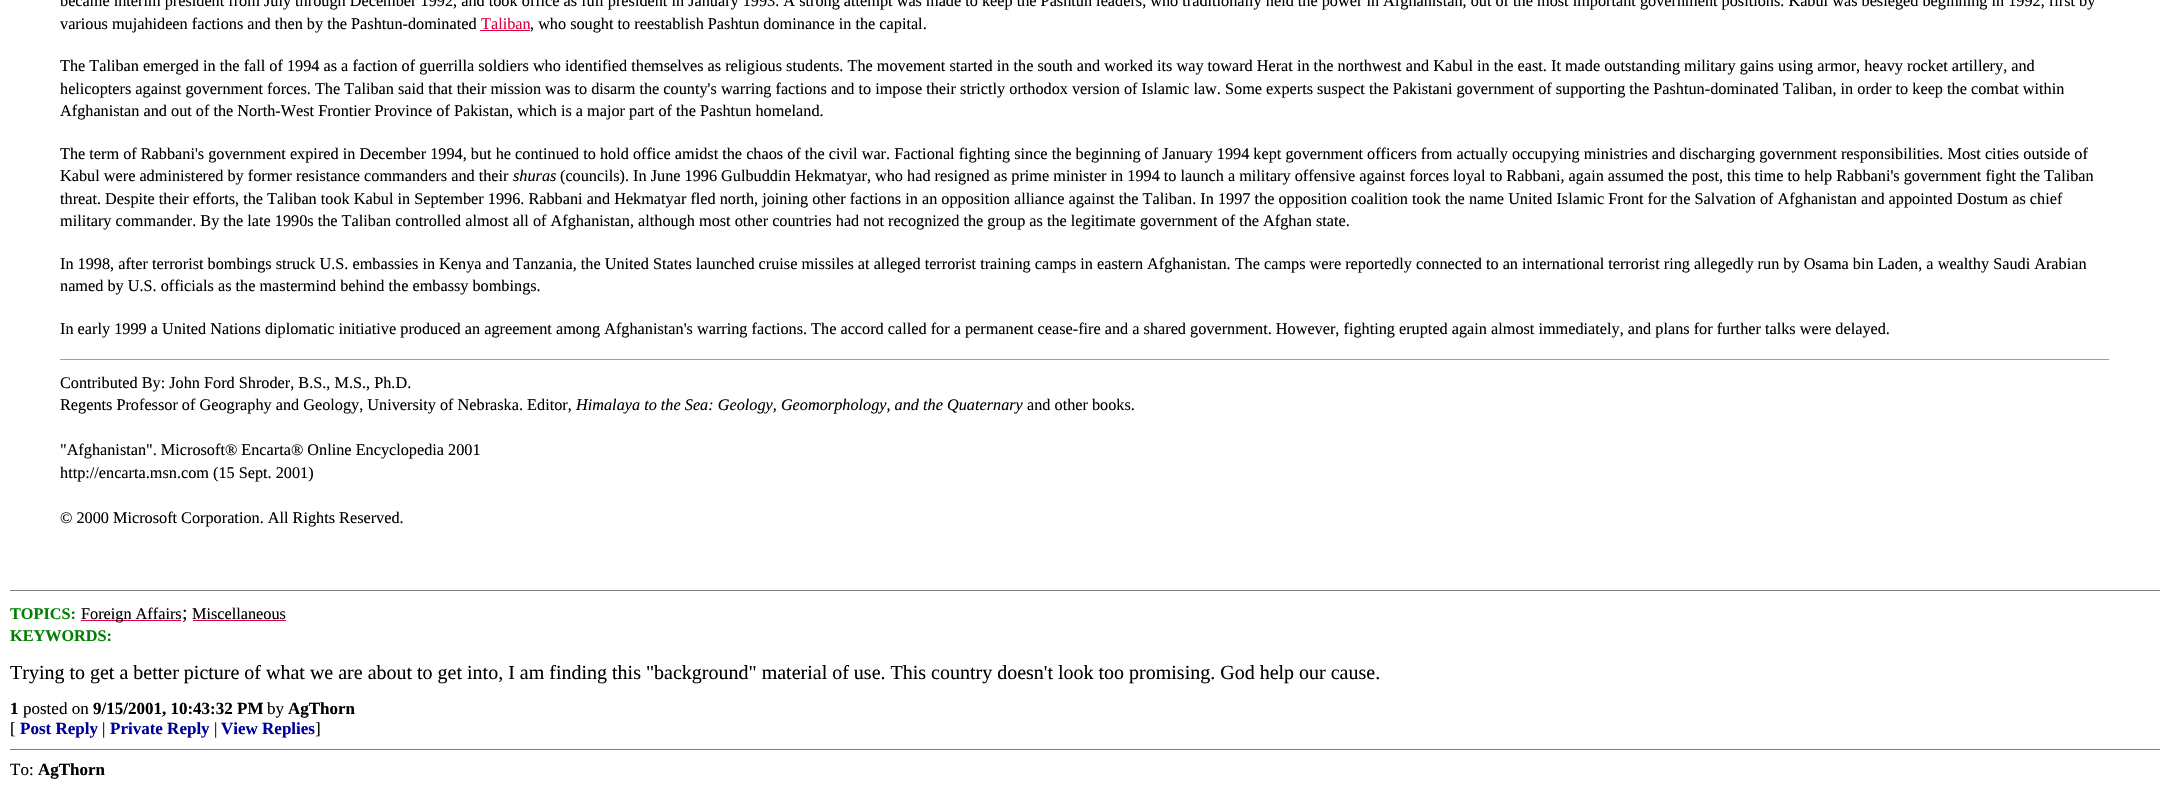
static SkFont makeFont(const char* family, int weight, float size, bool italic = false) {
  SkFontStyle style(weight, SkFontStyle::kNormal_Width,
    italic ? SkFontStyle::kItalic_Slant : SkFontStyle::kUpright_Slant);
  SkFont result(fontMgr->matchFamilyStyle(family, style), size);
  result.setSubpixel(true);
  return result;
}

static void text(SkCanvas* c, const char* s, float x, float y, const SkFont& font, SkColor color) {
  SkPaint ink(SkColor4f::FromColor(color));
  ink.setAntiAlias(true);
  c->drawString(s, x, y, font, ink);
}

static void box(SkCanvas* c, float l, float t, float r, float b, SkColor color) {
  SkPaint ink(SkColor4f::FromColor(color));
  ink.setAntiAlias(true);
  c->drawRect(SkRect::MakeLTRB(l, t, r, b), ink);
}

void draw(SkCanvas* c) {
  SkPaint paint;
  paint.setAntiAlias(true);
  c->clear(0xffffffff);
  SkFont face1 = makeFont("Liberation Serif", 400, 16.25f);
  text(c, "became interim president from July through December 1992, and took office as full president in January 1993. A strong attempt was made to keep the Pashtun leaders, who traditionally held the power in Afghanistan, out of the most important government positions. Kabul was besieged beginning in 1992, first by", 60, 6, face1, 0xff000000);
  text(c, "various mujahideen factions and then by the Pashtun-dominated", 60, 29, face1, 0xff000000);
  text(c, "Taliban", 481, 29, face1, 0xffe00040);
  text(c, ", who sought to reestablish Pashtun dominance in the capital.", 530, 29, face1, 0xff000000);
  box(c, 480, 30, 530, 31, 0xffe00040);
  text(c, "The Taliban emerged in the fall of 1994 as a faction of guerrilla soldiers who identified themselves as religious students. The movement started in the south and worked its way toward Herat in the northwest and Kabul in the east. It made outstanding military gains using armor, heavy rocket artillery, and", 60, 71, face1, 0xff000000);
  text(c, "helicopters against government forces. The Taliban said that their mission was to disarm the county's warring factions and to impose their strictly orthodox version of Islamic law. Some experts suspect the Pakistani government of supporting the Pashtun-dominated Taliban, in order to keep the combat within", 60, 94, face1, 0xff000000);
  text(c, "Afghanistan and out of the North-West Frontier Province of Pakistan, which is a major part of the Pashtun homeland.", 60, 116, face1, 0xff000000);
  text(c, "The term of Rabbani's government expired in December 1994, but he continued to hold office amidst the chaos of the civil war. Factional fighting since the beginning of January 1994 kept government officers from actually occupying ministries and discharging government responsibilities. Most cities outside of", 60, 159, face1, 0xff000000);
  text(c, "Kabul were administered by former resistance commanders and their", 60, 181, face1, 0xff000000);
  SkFont face2 = makeFont("Liberation Serif", 400, 16.25f, true);
  text(c, "shuras", 513, 181, face2, 0xff000000);
  text(c, "(councils). In June 1996 Gulbuddin Hekmatyar, who had resigned as prime minister in 1994 to launch a military offensive against forces loyal to Rabbani, again assumed the post, this time to help Rabbani's government fight the Taliban", 560, 181, face1, 0xff000000);
  text(c, "threat. Despite their efforts, the Taliban took Kabul in September 1996. Rabbani and Hekmatyar fled north, joining other factions in an opposition alliance against the Taliban. In 1997 the opposition coalition took the name United Islamic Front for the Salvation of Afghanistan and appointed Dostum as chief", 60, 204, face1, 0xff000000);
  text(c, "military commander. By the late 1990s the Taliban controlled almost all of Afghanistan, although most other countries had not recognized the group as the legitimate government of the Afghan state.", 60, 226, face1, 0xff000000);
  text(c, "In 1998, after terrorist bombings struck U.S. embassies in Kenya and Tanzania, the United States launched cruise missiles at alleged terrorist training camps in eastern Afghanistan. The camps were reportedly connected to an international terrorist ring allegedly run by Osama bin Laden, a wealthy Saudi Arabian", 60, 269, face1, 0xff000000);
  text(c, "named by U.S. officials as the mastermind behind the embassy bombings.", 60, 291, face1, 0xff000000);
  text(c, "In early 1999 a United Nations diplomatic initiative produced an agreement among Afghanistan's warring factions. The accord called for a permanent cease-fire and a shared government. However, fighting erupted again almost immediately, and plans for further talks were delayed.", 60, 334, face1, 0xff000000);
  box(c, 60, 359, 2110, 360, 0xff9f9f9f);
  box(c, 2109, 359, 2110, 360, 0xffeeeeee);
  text(c, "Contributed By: John Ford Shroder, B.S., M.S., Ph.D.", 60, 388, face1, 0xff000000);
  text(c, "Regents Professor of Geography and Geology, University of Nebraska. Editor,", 60, 410, face1, 0xff000000);
  text(c, "Himalaya to the Sea: Geology, Geomorphology, and the Quaternary", 576, 410, face2, 0xff000000);
  text(c, "and other books.", 1027, 410, face1, 0xff000000);
  text(c, "\"Afghanistan\". Microsoft® Encarta® Online Encyclopedia 2001", 60, 455, face1, 0xff000000);
  text(c, "http://encarta.msn.com (15 Sept. 2001)", 60, 478, face1, 0xff000000);
  text(c, "© 2000 Microsoft Corporation. All Rights Reserved.", 60, 523, face1, 0xff000000);
  box(c, 10, 590, 2160, 591, 0xff808080);
  SkFont face3 = makeFont("Liberation Serif", 700, 16.25f);
  text(c, "TOPICS:", 10, 619, face3, 0xff008000);
  box(c, 81, 620, 181, 621, 0xffe00040);
  text(c, "Foreign Affairs", 81, 619, face1, 0xff000000);
  SkFont face4 = makeFont("Liberation Serif", 400, 20);
  text(c, ";", 182, 619, face4, 0xff000000);
  text(c, "Miscellaneous", 192, 619, face1, 0xff000000);
  box(c, 193, 620, 286, 621, 0xffe00040);
  text(c, "KEYWORDS:", 10, 641, face3, 0xff008000);
  text(c, "Trying to get a better picture of what we are about to get into, I am finding this \"background\" material of use. This country doesn't look too promising. God help our cause.", 10, 679, face4, 0xff000000);
  SkFont face5 = makeFont("Liberation Serif", 700, 17);
  text(c, "1", 10, 714, face5, 0xff000000);
  SkFont face6 = makeFont("Liberation Serif", 400, 17);
  text(c, "posted on", 23, 714, face6, 0xff000000);
  text(c, "9/15/2001, 10:43:32 PM", 93, 714, face5, 0xff000000);
  text(c, "by", 267, 714, face6, 0xff000000);
  text(c, "AgThorn", 288, 714, face5, 0xff000000);
  text(c, "[", 10, 734, face6, 0xff000000);
  text(c, "Post Reply", 20, 734, face5, 0xff000099);
  text(c, "|", 102, 734, face6, 0xff000000);
  text(c, "Private Reply", 110, 734, face5, 0xff000099);
  text(c, "|", 214, 734, face6, 0xff000000);
  text(c, "View Replies", 221, 734, face5, 0xff000099);
  text(c, "]", 315, 734, face6, 0xff000000);
  box(c, 10, 749, 2160, 750, 0xff808080);
  text(c, "To:", 10, 775, face6, 0xff000000);
  text(c, "AgThorn", 38, 775, face5, 0xff000000);
}
